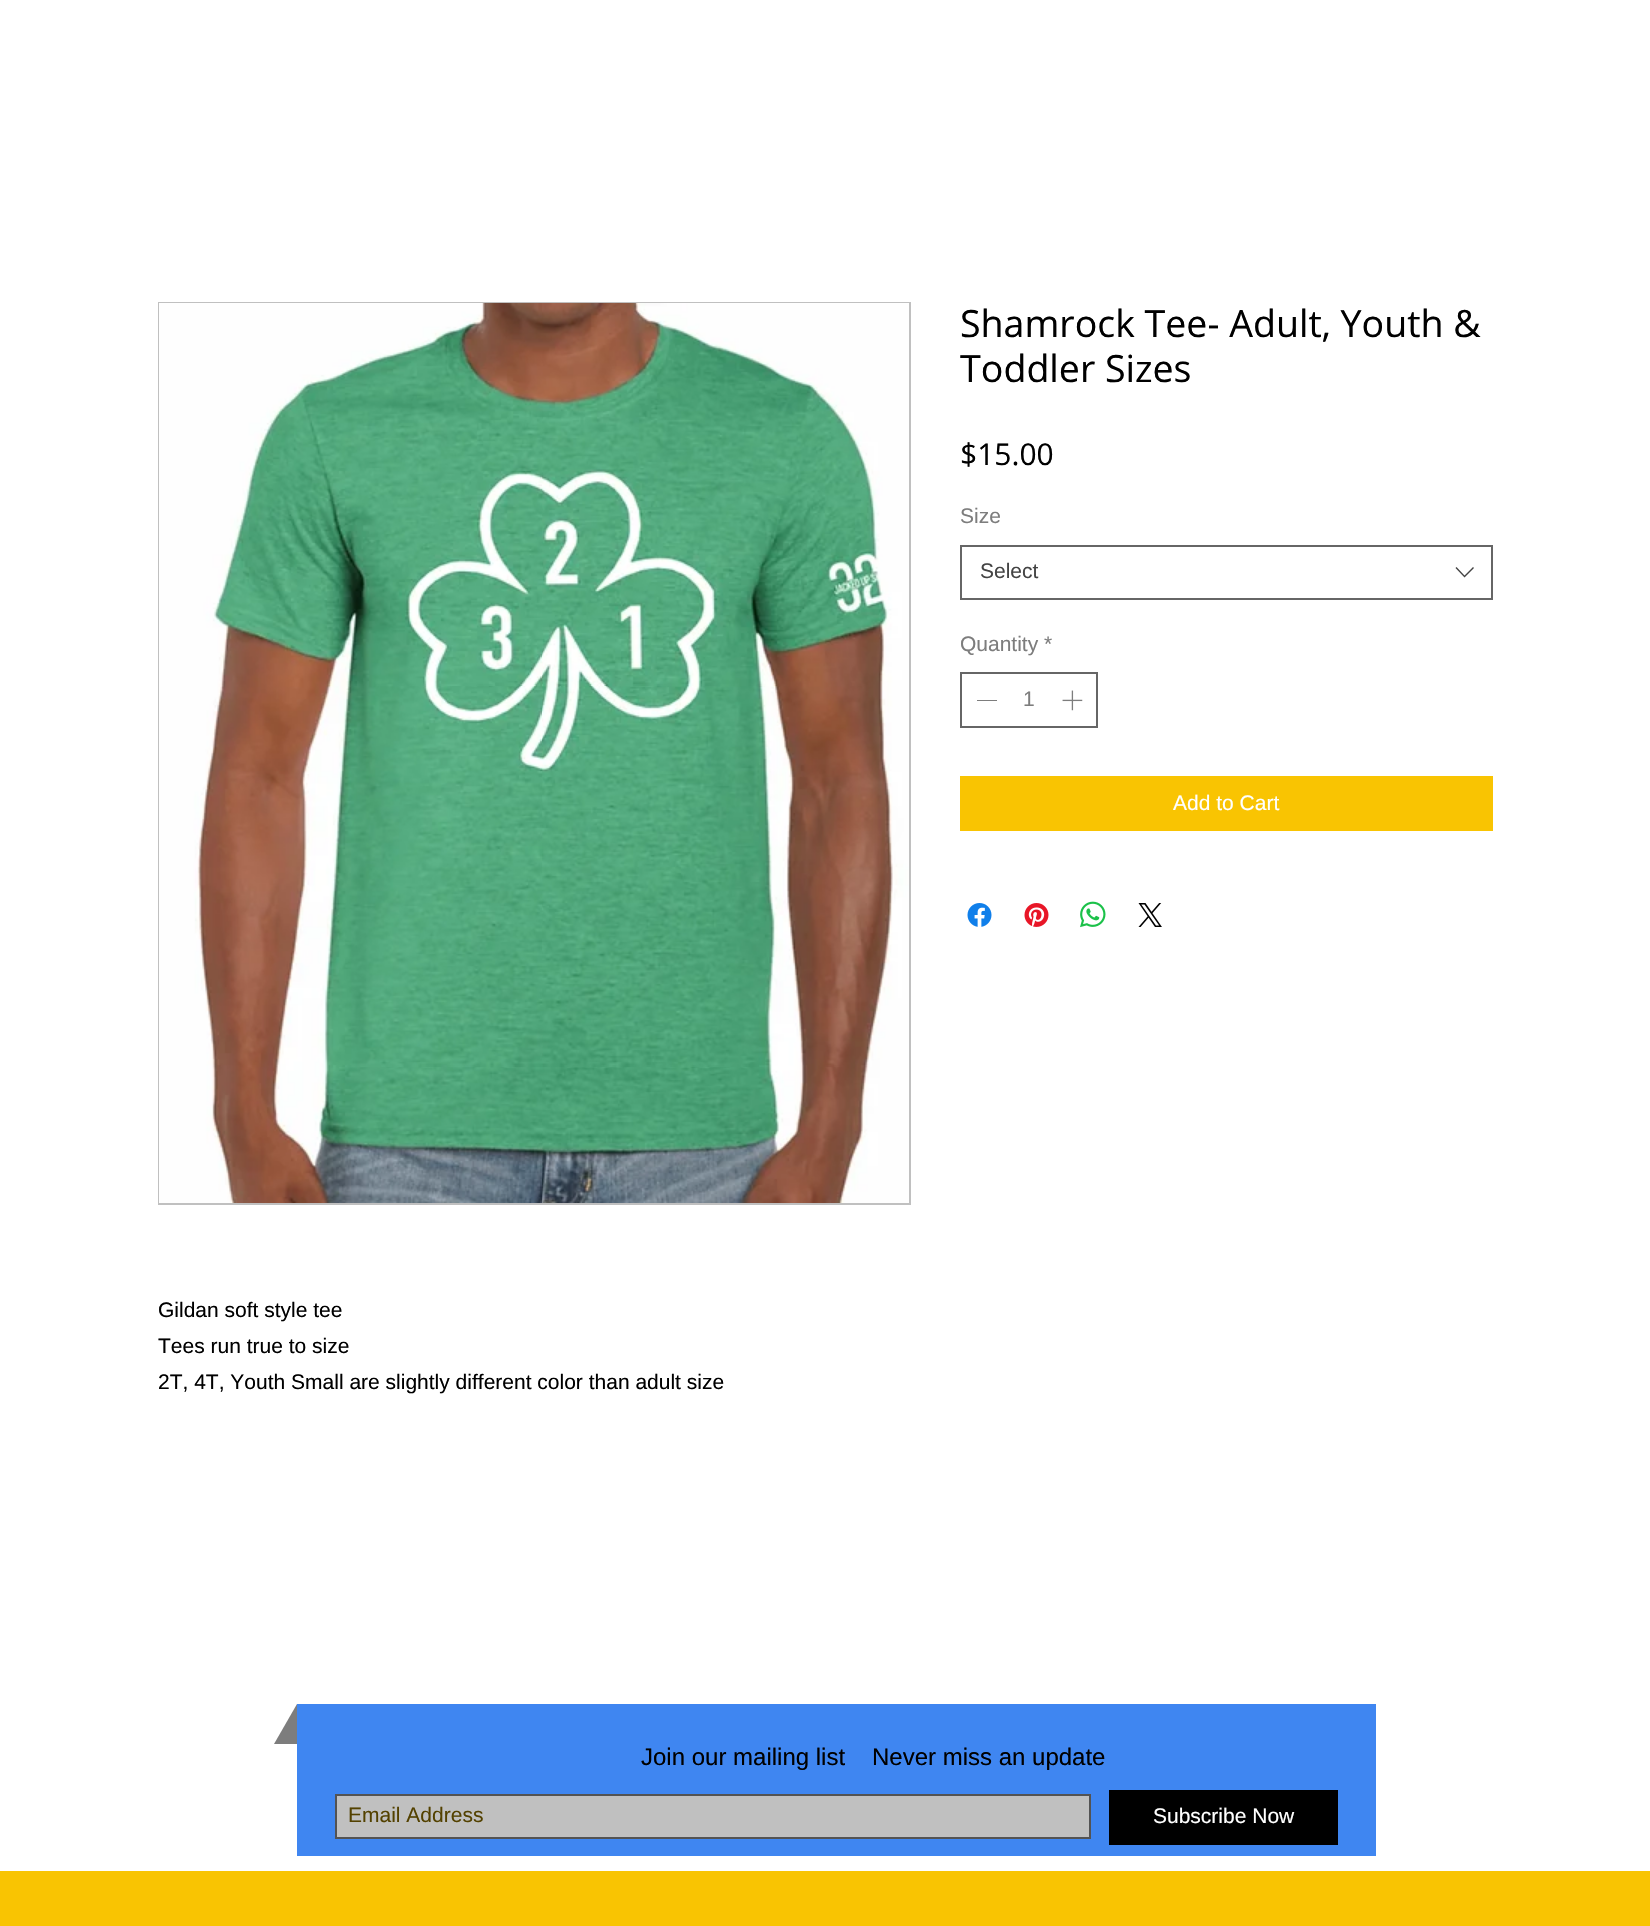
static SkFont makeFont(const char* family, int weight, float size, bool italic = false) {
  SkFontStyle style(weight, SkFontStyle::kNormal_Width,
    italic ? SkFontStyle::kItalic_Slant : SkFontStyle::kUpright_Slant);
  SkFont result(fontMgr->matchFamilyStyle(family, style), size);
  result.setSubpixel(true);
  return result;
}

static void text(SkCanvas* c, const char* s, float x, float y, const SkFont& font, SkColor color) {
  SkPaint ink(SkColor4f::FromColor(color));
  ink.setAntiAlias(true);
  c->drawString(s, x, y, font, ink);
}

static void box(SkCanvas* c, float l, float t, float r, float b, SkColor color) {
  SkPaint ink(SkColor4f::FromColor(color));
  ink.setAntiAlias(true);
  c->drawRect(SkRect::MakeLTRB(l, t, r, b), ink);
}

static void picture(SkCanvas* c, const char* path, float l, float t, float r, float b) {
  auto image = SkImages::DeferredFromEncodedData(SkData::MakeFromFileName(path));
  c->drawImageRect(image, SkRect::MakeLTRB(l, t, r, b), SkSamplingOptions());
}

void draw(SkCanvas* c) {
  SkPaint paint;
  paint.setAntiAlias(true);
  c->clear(0xffffffff);
  SkFont face1 = makeFont("Open Sans", 400, 37.5f);
  text(c, "Shamrock Tee- Adult, Youth &", 960, 337, face1, 0xff000000);
  text(c, "Toddler Sizes", 960, 382, face1, 0xff000000);
  SkFont face2 = makeFont("Open Sans", 400, 30);
  text(c, "$15.00", 960, 465, face2, 0xff000000);
  SkFont face3 = makeFont("Liberation Sans", 400, 21);
  text(c, "Size", 960, 523, face3, 0xff7d7d7d);
  paint.setStyle(SkPaint::kStroke_Style);
  paint.setStrokeWidth(2);
  paint.setColor(0xff666666);
  c->drawRect(SkRect::MakeLTRB(961, 546, 1492, 599), paint);
  text(c, "Select", 980, 578, face3, 0xff444444);
  paint.setStyle(SkPaint::kFill_Style);
  paint.setColor(0xff444444);
  c->drawPath(SkPathBuilder(SkPathFillType::kEvenOdd).moveTo(1473, 567).lineTo(1474, 568).lineTo(1464.5f, 577.5f).lineTo(1455.5f, 568).lineTo(1456.5f, 567).lineTo(1464.5f, 575.5f).close().detach(), paint);
  text(c, "Quantity *", 960, 651, face3, 0xff7d7d7d);
  paint.setStyle(SkPaint::kStroke_Style);
  paint.setColor(0xff666666);
  c->drawRect(SkRect::MakeLTRB(961, 673, 1097, 727), paint);
  box(c, 977, 700, 997, 701, 0xff7d7d7d);
  text(c, "1", 1023, 706, face3, 0xff7d7d7d);
  picture(c, "img_01.png", 1062, 690, 1083, 711);
  box(c, 960, 776, 1493, 831, 0xfff9c402);
  text(c, "Add to Cart", 1173, 810, face3, 0xffffffff);
  picture(c, "img_02.png", 967, 903, 992, 927);
  picture(c, "img_03.png", 1024, 903, 1049, 927);
  picture(c, "img_04.png", 1080, 901, 1106, 928);
  picture(c, "img_05.png", 1138, 903, 1162, 927);
  paint.setColor(0xffc0c0c0);
  c->drawRect(SkRect::MakeLTRB(159, 303, 910, 1204), paint);
  picture(c, "img_06.png", 159, 303, 909, 1203);
  text(c, "Gildan soft style tee", 158, 1317, face3, 0xff000000);
  text(c, "Tees run true to size", 158, 1353, face3, 0xff000000);
  text(c, "2T, 4T, Youth Small are slightly different color than adult size", 158, 1389, face3, 0xff000000);
  paint.setStyle(SkPaint::kFill_Style);
  paint.setColor(0xff7d7d7d);
  c->drawPath(SkPathBuilder().moveTo(297, 1704).lineTo(297, 1744).lineTo(274, 1744).close().detach(), paint);
  box(c, 297, 1704, 1376, 1856, 0xff3f86f1);
  SkFont face4 = makeFont("Liberation Sans", 400, 24);
  text(c, "Join our mailing list", 641, 1765, face4, 0xff000000);
  text(c, "Never miss an update", 872, 1765, face4, 0xff000000);
  paint.setColor(0xffc0c0c0);
  c->drawRect(SkRect::MakeLTRB(336, 1795, 1090, 1838), paint);
  paint.setStyle(SkPaint::kStroke_Style);
  paint.setColor(0xff535353);
  c->drawRect(SkRect::MakeLTRB(336, 1795, 1090, 1838), paint);
  text(c, "Email Address", 348, 1822, face3, 0xff534100);
  box(c, 1109, 1790, 1338, 1845, 0xff000000);
  text(c, "Subscribe Now", 1153, 1823, face3, 0xffffffff);
  box(c, 0, 1871, 1650, 1926, 0xfff9c402);
}
